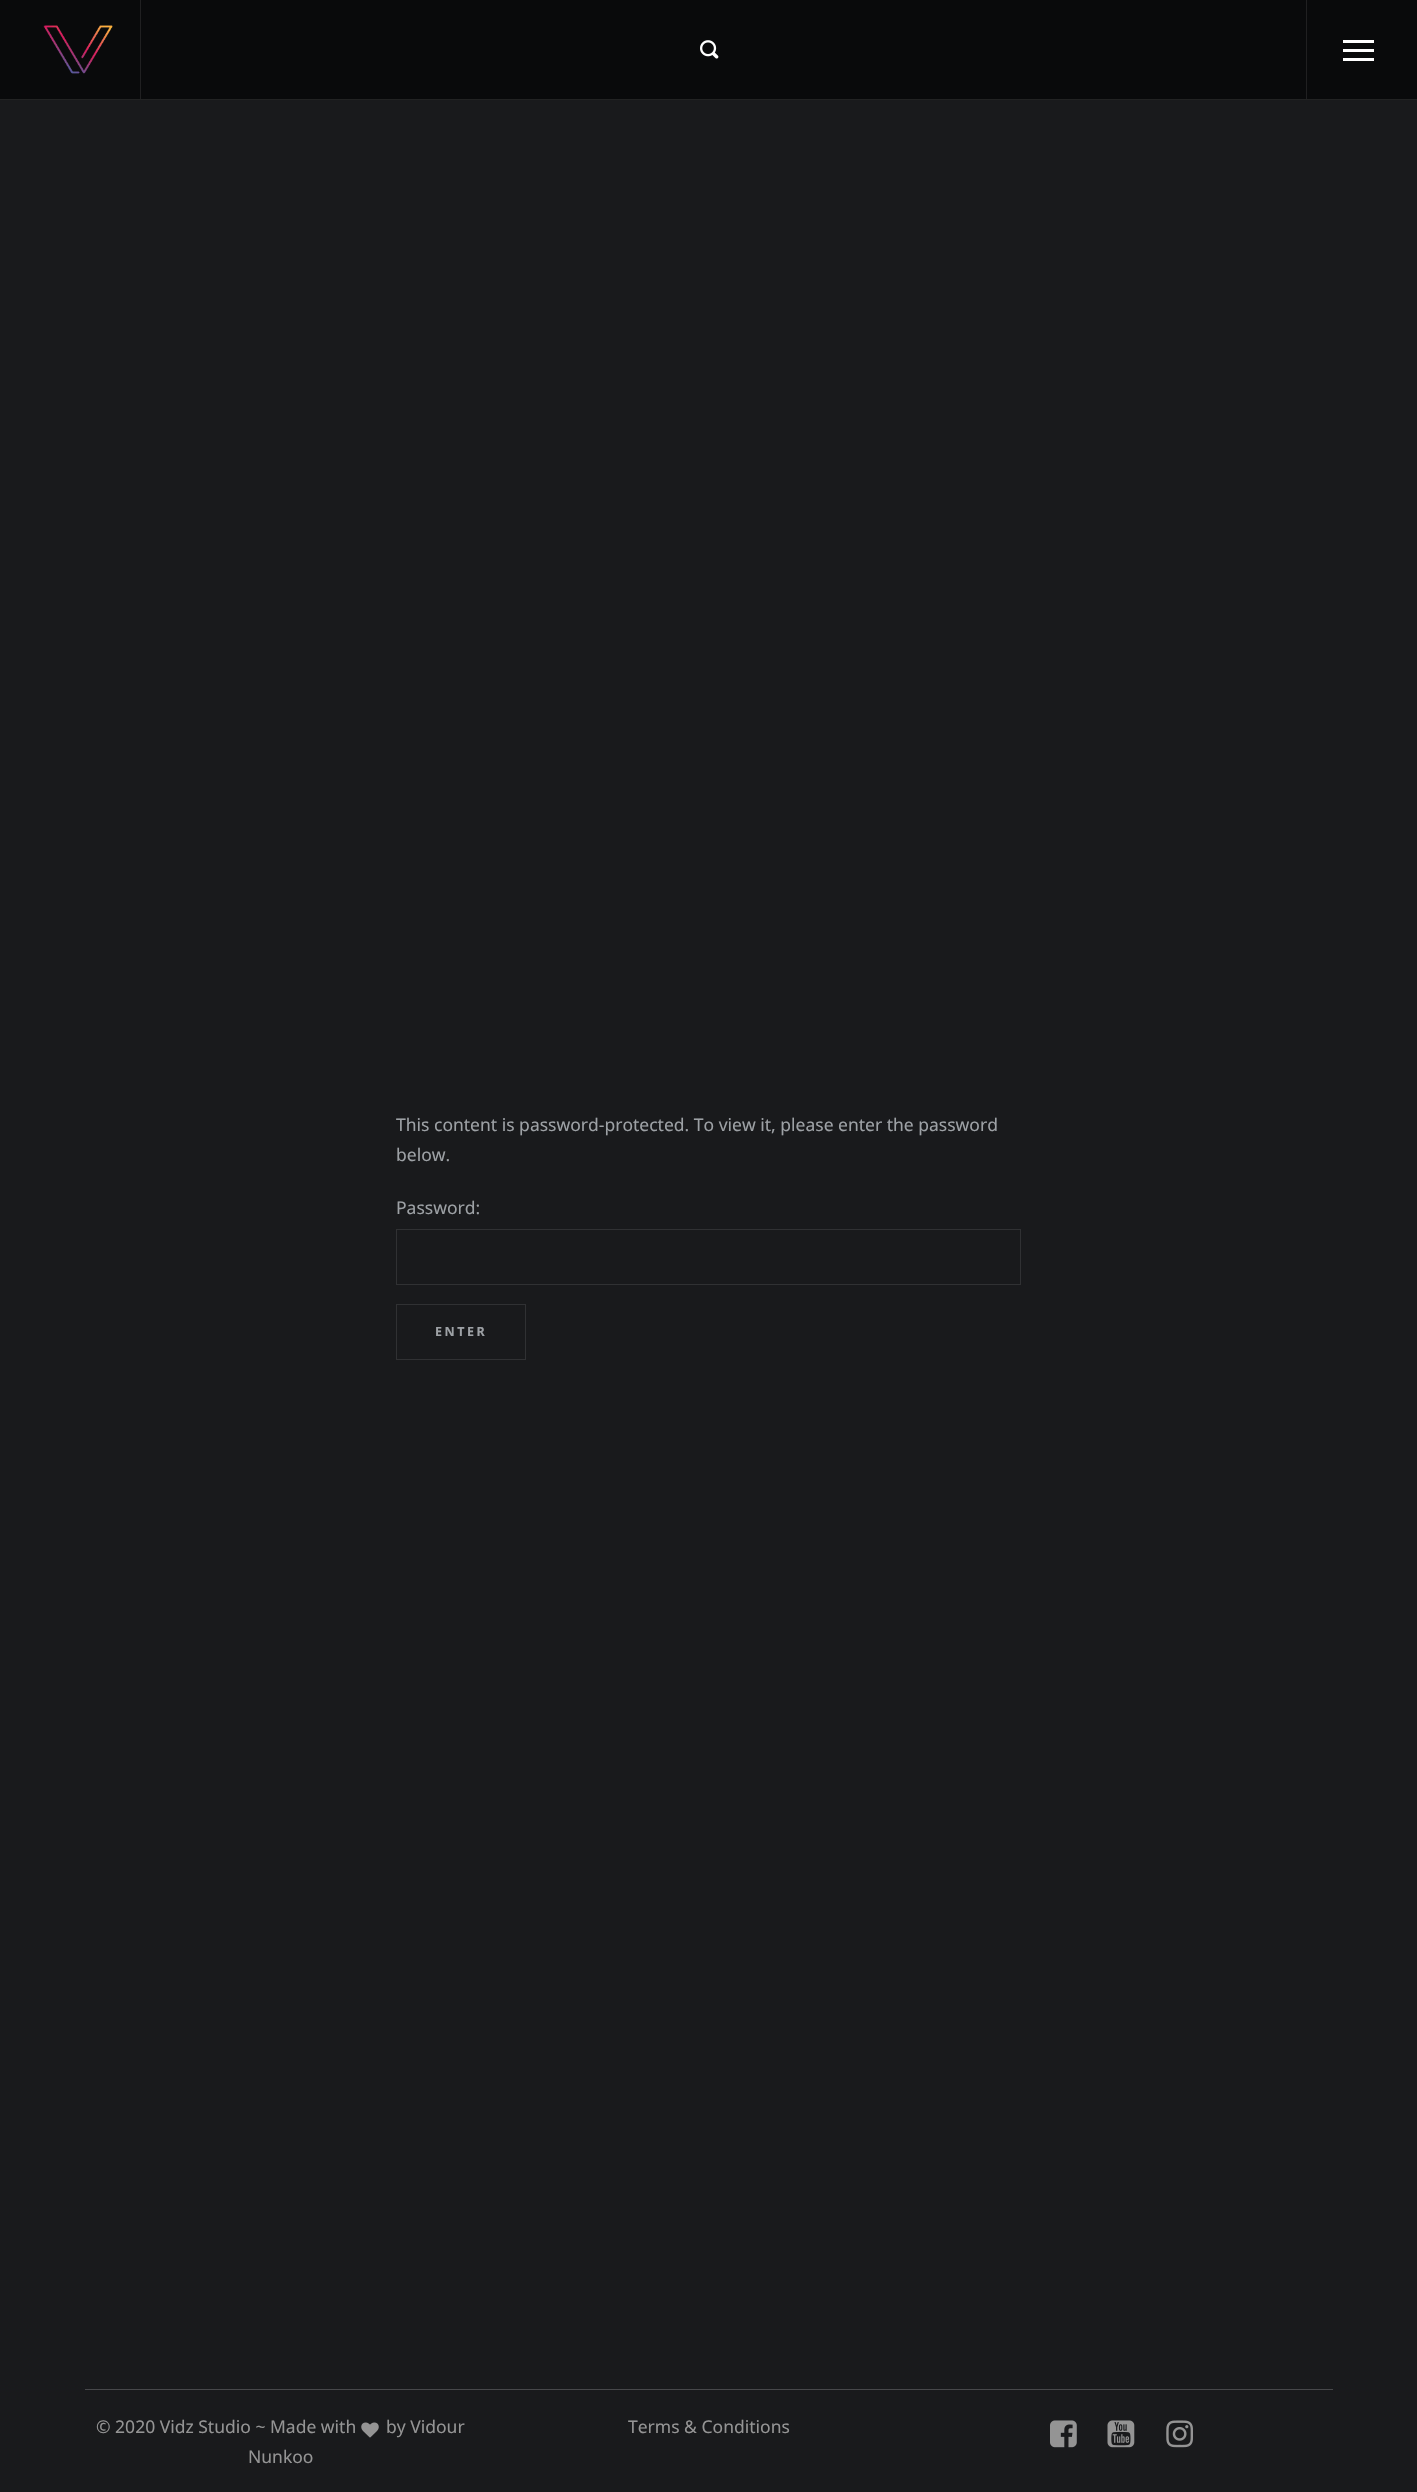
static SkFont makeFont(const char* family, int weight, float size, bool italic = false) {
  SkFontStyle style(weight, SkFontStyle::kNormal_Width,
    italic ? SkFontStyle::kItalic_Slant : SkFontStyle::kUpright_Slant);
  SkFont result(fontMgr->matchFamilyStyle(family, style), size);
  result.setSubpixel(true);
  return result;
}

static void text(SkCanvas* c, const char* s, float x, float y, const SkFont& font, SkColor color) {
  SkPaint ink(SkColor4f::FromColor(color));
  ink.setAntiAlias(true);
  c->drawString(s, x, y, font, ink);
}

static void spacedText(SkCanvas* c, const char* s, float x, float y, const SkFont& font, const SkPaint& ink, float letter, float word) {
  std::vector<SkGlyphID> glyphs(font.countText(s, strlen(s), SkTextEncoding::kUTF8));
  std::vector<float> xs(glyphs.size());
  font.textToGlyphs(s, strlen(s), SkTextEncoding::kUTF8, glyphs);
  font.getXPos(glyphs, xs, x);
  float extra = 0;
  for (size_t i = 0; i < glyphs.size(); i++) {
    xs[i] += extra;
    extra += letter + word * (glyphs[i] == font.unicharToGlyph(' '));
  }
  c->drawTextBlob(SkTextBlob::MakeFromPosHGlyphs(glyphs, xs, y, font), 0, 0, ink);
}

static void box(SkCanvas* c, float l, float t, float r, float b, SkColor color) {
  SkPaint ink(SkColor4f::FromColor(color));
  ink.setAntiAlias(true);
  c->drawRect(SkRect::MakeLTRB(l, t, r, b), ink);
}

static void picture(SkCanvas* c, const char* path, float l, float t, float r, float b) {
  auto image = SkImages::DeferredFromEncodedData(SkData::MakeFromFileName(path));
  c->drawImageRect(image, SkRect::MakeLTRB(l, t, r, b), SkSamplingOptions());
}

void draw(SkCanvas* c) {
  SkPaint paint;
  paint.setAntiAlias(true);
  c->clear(0xff191a1c);
  box(c, 0, 0, 1417, 99, 0xff090a0b);
  box(c, 0, 99, 1417, 100, 0xff222323);
  picture(c, "img_01.png", 43, 25, 113, 74);
  box(c, 140, 0, 141, 99, 0xff202021);
  picture(c, "img_02.png", 700, 40, 719, 59);
  box(c, 1306, 0, 1307, 99, 0xff202021);
  box(c, 1343, 49, 1374, 52, 0xffffffff);
  box(c, 1343, 40, 1374, 43, 0xffffffff);
  box(c, 1343, 58, 1374, 61, 0xffffffff);
  SkFont face1 = makeFont("Noto Sans", 400, 17.5f);
  text(c, "This content is password-protected. To view it, please enter the password", 396, 1131, face1, 0xff9da1a5);
  text(c, "below.", 396, 1161, face1, 0xff9da1a5);
  text(c, "Password:", 396, 1214, face1, 0xff9da1a5);
  paint.setStyle(SkPaint::kStroke_Style);
  paint.setStrokeWidth(1);
  paint.setColor(0xff303133);
  c->drawRect(SkRect::MakeLTRB(396.5f, 1229.5f, 1020.5f, 1284.5f), paint);
  c->drawRect(SkRect::MakeLTRB(396.5f, 1304.5f, 525.5f, 1359.5f), paint);
  SkFont face2 = makeFont("Noto Sans", 700, 12.5f);
  paint.setStyle(SkPaint::kFill_Style);
  paint.setColor(0xff9da1a5);
  spacedText(c, "ENTER", 435, 1336, face2, paint, 2.5f, 0);
  box(c, 85, 2389, 1333, 2390, 0xff47484a);
  text(c, "© 2020 Vidz Studio ~ Made with", 96, 2433, face1, 0xff949494);
  picture(c, "img_03.png", 361, 2422, 379, 2438);
  text(c, "by Vidour", 386, 2433, face1, 0xff949494);
  text(c, "Nunkoo", 248, 2463, face1, 0xff949494);
  text(c, "Terms & Conditions", 628, 2433, face1, 0xff949494);
  picture(c, "img_04.png", 1050, 2420, 1077, 2448);
  picture(c, "img_05.png", 1107, 2420, 1135, 2448);
  picture(c, "img_06.png", 1166, 2420, 1193, 2448);
}
